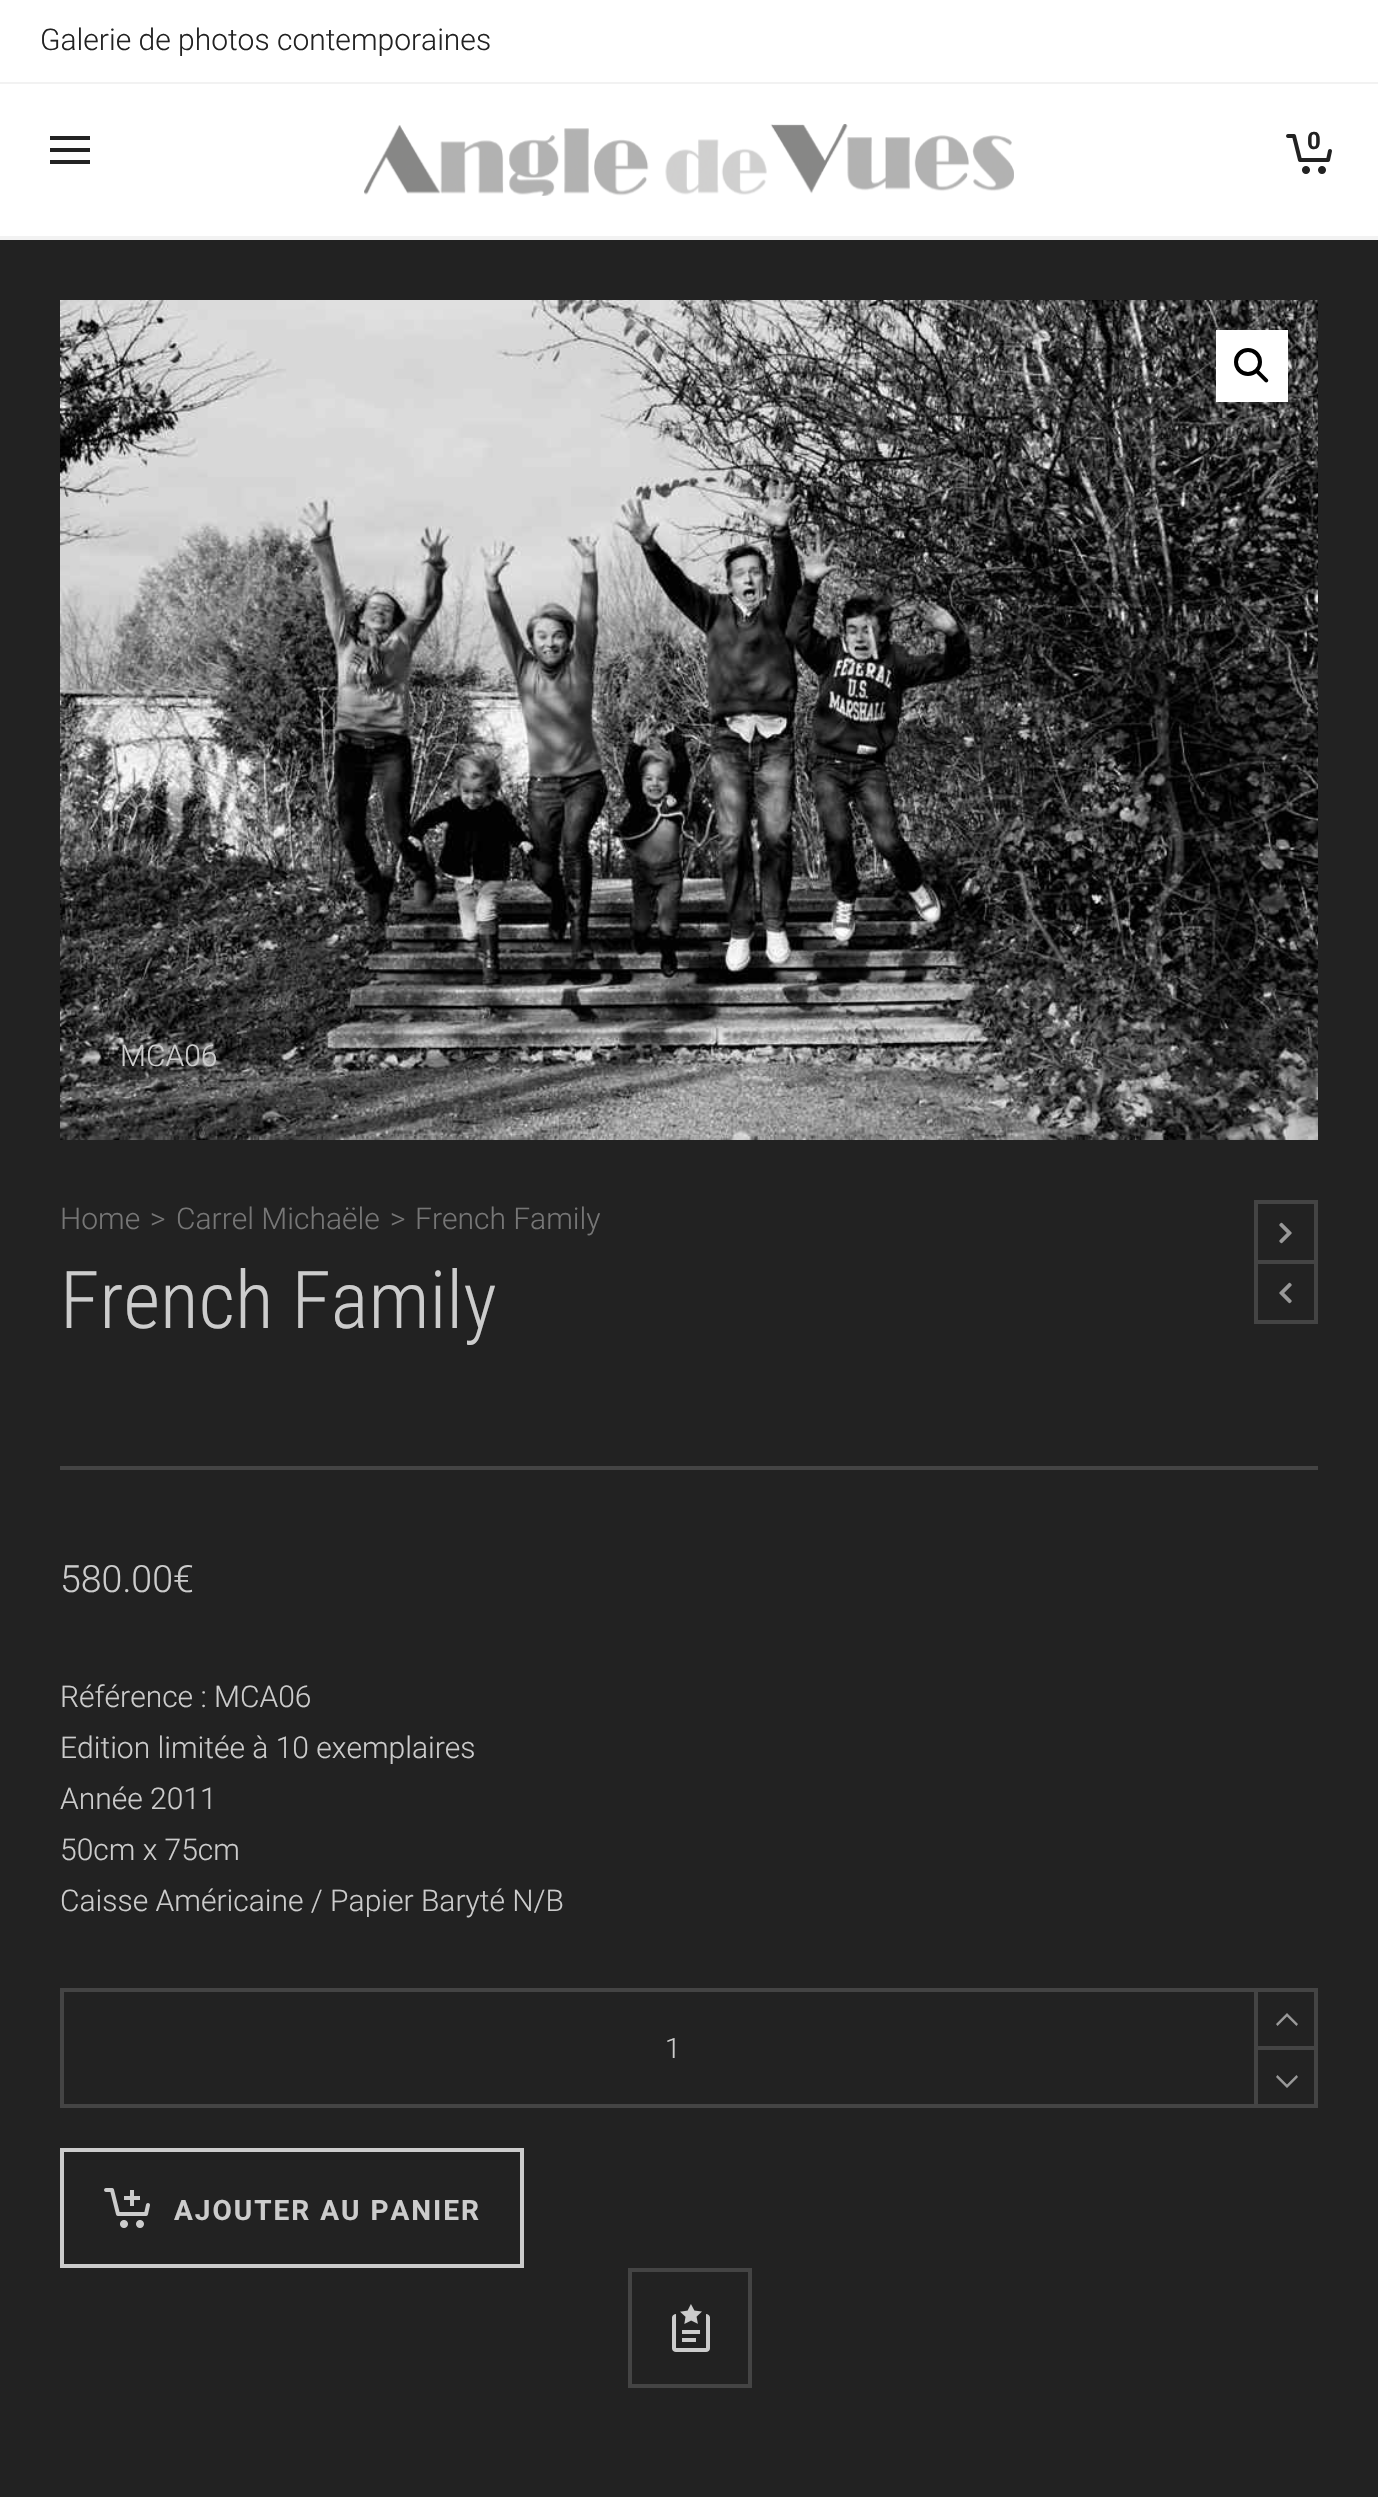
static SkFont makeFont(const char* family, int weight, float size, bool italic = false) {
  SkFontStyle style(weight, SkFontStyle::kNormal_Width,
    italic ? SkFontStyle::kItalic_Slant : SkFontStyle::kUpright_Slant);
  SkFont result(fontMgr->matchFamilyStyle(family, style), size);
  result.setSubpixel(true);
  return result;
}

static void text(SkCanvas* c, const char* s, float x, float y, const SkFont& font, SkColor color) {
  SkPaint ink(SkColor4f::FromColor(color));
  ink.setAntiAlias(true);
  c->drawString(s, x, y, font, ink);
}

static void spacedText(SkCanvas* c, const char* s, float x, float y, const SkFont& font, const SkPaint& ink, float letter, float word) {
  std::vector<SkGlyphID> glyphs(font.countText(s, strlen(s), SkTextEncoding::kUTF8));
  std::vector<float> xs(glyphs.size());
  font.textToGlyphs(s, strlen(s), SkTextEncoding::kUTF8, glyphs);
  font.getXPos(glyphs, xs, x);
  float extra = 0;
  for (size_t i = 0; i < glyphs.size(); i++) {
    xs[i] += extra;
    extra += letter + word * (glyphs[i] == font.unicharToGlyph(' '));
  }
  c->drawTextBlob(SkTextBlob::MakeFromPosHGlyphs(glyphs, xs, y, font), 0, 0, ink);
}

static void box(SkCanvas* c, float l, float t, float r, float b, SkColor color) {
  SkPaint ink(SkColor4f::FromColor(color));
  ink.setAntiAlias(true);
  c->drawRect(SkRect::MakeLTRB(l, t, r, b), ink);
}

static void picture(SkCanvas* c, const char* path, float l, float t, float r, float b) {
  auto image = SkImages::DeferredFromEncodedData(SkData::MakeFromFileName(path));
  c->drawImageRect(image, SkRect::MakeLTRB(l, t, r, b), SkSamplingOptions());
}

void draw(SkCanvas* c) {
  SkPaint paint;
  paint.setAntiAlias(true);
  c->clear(0xff222222);
  box(c, 0, 0, 1378, 82, 0xffffffff);
  box(c, 0, 82, 1378, 84, 0xfff2f2f2);
  SkFont face1 = makeFont("Roboto", 300, 30);
  text(c, "Galerie de photos contemporaines", 40, 50, face1, 0xff222222);
  box(c, 0, 84, 1378, 236, 0xffffffff);
  box(c, 0, 236, 1378, 240, 0xfff2f2f2);
  box(c, 50, 148, 90, 152, 0xff222222);
  box(c, 50, 136, 90, 140, 0xff222222);
  box(c, 50, 160, 90, 164, 0xff222222);
  picture(c, "img_01.png", 364, 124, 1014, 196);
  picture(c, "img_02.png", 1286, 134, 1332, 174);
  SkFont face2 = makeFont("Roboto", 700, 24);
  text(c, "0", 1307, 149, face2, 0xff222222);
  picture(c, "img_03.png", 60, 300, 1318, 1140);
  box(c, 1216, 330, 1288, 402, 0xffffffff);
  paint.setStyle(SkPaint::kStroke_Style);
  paint.setStrokeWidth(4);
  paint.setColor(0xff000000);
  c->drawCircle(1248, 362, 12, paint);
  paint.setStyle(SkPaint::kFill_Style);
  c->drawPath(SkPathBuilder().moveTo(1256.5f, 370.5f).cubicTo(1257, 370, 1258.5f, 370, 1259, 370.5f).lineTo(1267.5f, 379).cubicTo(1268.5f, 380, 1268.5f, 381, 1267.5f, 382).cubicTo(1267, 382.5f, 1265.5f, 382.5f, 1265, 382).lineTo(1256.5f, 373.5f).cubicTo(1255.5f, 372.5f, 1255.5f, 371.5f, 1256.5f, 370.5f).close().detach(), paint);
  text(c, "MCA06", 120, 1066, face1, 0xffcccccc);
  box(c, 60, 1466, 1318, 1470, 0xff444444);
  text(c, "Home", 60, 1229, face1, 0xff767676);
  text(c, ">", 150, 1229, face1, 0xff767676);
  text(c, "Carrel Michaële", 176, 1229, face1, 0xff767676);
  text(c, ">", 390, 1229, face1, 0xff767676);
  text(c, "French Family", 415, 1229, face1, 0xff767676);
  paint.setStyle(SkPaint::kStroke_Style);
  paint.setColor(0xff444444);
  c->drawRect(SkRect::MakeLTRB(1256, 1202, 1316, 1262), paint);
  picture(c, "img_04.png", 1279, 1222, 1292, 1244);
  c->drawRect(SkRect::MakeLTRB(1256, 1262, 1316, 1322), paint);
  picture(c, "img_05.png", 1279, 1282, 1292, 1304);
  SkFont face3 = makeFont("Roboto Condensed", 300, 80);
  text(c, "French Family", 60, 1328, face3, 0xffcccccc);
  SkFont face4 = makeFont("Roboto", 300, 37.5f);
  text(c, "580.00€", 60, 1592, face4, 0xffcccccc);
  text(c, "Référence : MCA06", 60, 1707, face1, 0xffcccccc);
  text(c, "Edition limitée à 10 exemplaires", 60, 1758, face1, 0xffcccccc);
  text(c, "Année 2011", 60, 1809, face1, 0xffcccccc);
  text(c, "50cm x 75cm", 60, 1860, face1, 0xffcccccc);
  text(c, "Caisse Américaine / Papier Baryté N/B", 60, 1911, face1, 0xffcccccc);
  c->drawRect(SkRect::MakeLTRB(62, 1990, 1316, 2106), paint);
  SkFont face5 = makeFont("Roboto", 300, 28);
  text(c, "1", 665, 2058, face5, 0xffcccccc);
  box(c, 1254, 1988, 1258, 2108, 0xff444444);
  box(c, 1258, 2046, 1318, 2050, 0xff444444);
  paint.setStyle(SkPaint::kFill_Style);
  paint.setColor(0xff999999);
  c->drawPath(SkPathBuilder().moveTo(1276, 2024).lineTo(1277.5f, 2026).lineTo(1287, 2016.5f).lineTo(1296.5f, 2026).lineTo(1298, 2024).lineTo(1287, 2013).close().detach(), paint);
  c->drawPath(SkPathBuilder().moveTo(1298, 2077).lineTo(1296.5f, 2075).lineTo(1287, 2084.5f).lineTo(1277.5f, 2075).lineTo(1276, 2077).lineTo(1287, 2088).close().detach(), paint);
  paint.setStyle(SkPaint::kStroke_Style);
  paint.setColor(0xffcccccc);
  c->drawRect(SkRect::MakeLTRB(62, 2150, 522, 2266), paint);
  picture(c, "img_06.png", 104, 2188, 150, 2228);
  SkFont face6 = makeFont("Roboto", 700, 28);
  paint.setStyle(SkPaint::kFill_Style);
  spacedText(c, "AJOUTER AU PANIER", 174, 2220, face6, paint, 2, 0);
  paint.setStyle(SkPaint::kStroke_Style);
  paint.setColor(0xff444444);
  c->drawRect(SkRect::MakeLTRB(630, 2270, 750, 2386), paint);
  picture(c, "img_07.png", 672, 2304, 710, 2352);
}
